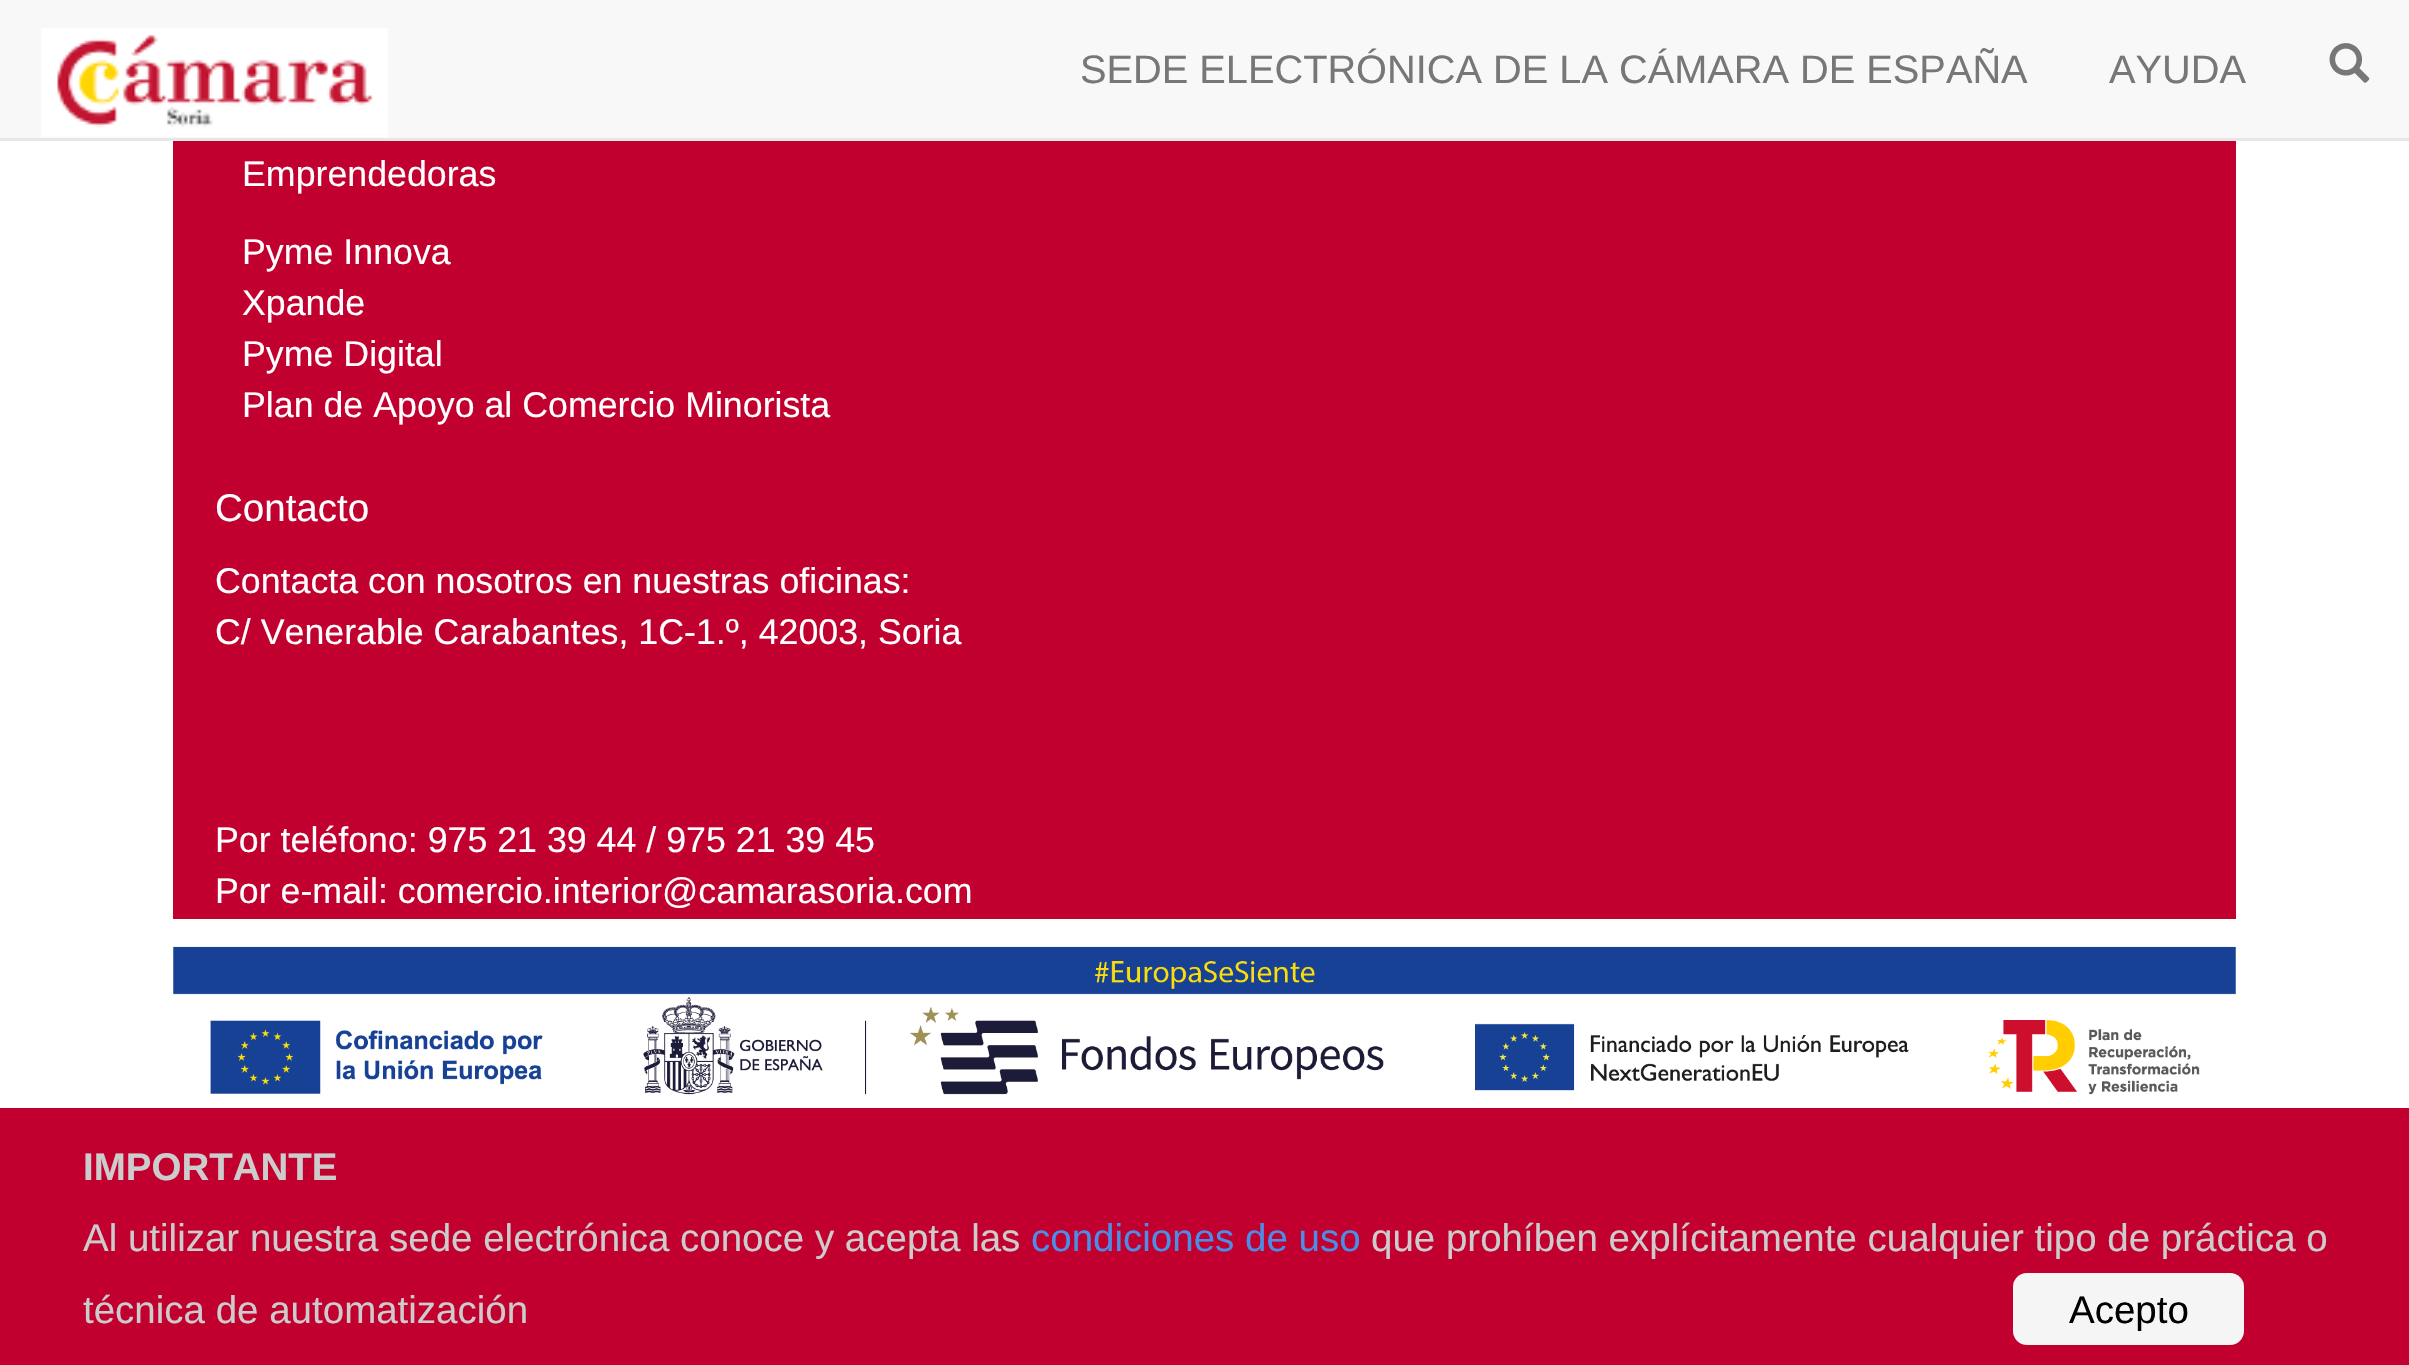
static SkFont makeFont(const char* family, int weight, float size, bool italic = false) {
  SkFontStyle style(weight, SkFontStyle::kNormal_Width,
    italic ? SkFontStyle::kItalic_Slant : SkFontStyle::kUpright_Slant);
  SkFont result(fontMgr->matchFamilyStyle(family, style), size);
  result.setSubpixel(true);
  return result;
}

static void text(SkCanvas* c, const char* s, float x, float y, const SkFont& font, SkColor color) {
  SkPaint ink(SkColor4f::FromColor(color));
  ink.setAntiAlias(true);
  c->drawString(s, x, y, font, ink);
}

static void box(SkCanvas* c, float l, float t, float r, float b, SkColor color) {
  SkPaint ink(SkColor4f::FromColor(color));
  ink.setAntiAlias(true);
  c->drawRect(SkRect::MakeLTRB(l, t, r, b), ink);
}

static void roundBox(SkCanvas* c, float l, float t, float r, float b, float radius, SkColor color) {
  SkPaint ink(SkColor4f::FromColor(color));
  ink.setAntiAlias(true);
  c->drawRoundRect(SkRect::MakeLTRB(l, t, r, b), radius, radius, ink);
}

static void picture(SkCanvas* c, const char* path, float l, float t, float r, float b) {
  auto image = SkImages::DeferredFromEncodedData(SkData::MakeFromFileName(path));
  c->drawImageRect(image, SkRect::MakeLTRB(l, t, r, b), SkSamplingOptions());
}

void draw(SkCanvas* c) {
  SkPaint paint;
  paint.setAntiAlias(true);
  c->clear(0xffffffff);
  box(c, 0, 0, 2409, 138, 0xfff8f8f8);
  box(c, 0, 138, 2409, 141, 0xffe7e7e7);
  picture(c, "img_01.png", 41, 28, 388, 137);
  SkFont face1 = makeFont("Liberation Sans", 400, 39.75f);
  text(c, "SEDE ELECTRÓNICA DE LA CÁMARA DE ESPAÑA", 1080, 83, face1, 0xff777777);
  text(c, "AYUDA", 2109, 83, face1, 0xff777777);
  picture(c, "img_02.png", 2329, 43, 2370, 83);
  box(c, 173, 141, 2236, 919, 0xffc2002f);
  SkFont face2 = makeFont("Liberation Sans", 400, 35.75f);
  text(c, "Emprendedoras", 242, 186, face2, 0xffffffff);
  text(c, "Pyme Innova", 242, 264, face2, 0xffffffff);
  text(c, "Xpande", 242, 315, face2, 0xffffffff);
  text(c, "Pyme Digital", 242, 366, face2, 0xffffffff);
  text(c, "Plan de Apoyo al Comercio Minorista", 242, 417, face2, 0xffffffff);
  SkFont face3 = makeFont("Liberation Sans", 400, 38.5f);
  text(c, "Contacto", 215, 521, face3, 0xffffffff);
  text(c, "Contacta con nosotros en nuestras oficinas:", 215, 593, face2, 0xffffffff);
  text(c, "C/ Venerable Carabantes, 1C-1.º, 42003, Soria", 215, 644, face2, 0xffffffff);
  text(c, "Por teléfono: 975 21 39 44 / 975 21 39 45", 215, 852, face2, 0xffffffff);
  text(c, "Por e-mail: comercio.interior@camarasoria.com", 215, 903, face2, 0xffffffff);
  picture(c, "img_03.png", 173, 946, 2236, 1095);
  box(c, 0, 1108, 2409, 1365, 0xffc2002f);
  SkFont face4 = makeFont("Liberation Sans", 700, 38.5f);
  text(c, "IMPORTANTE", 83, 1180, face4, 0xffcccccc);
  text(c, "Al utilizar nuestra sede electrónica conoce y acepta las", 83, 1251, face3, 0xffcccccc);
  text(c, "condiciones de uso", 1031, 1251, face3, 0xff4b8ee7);
  text(c, "que prohíben explícitamente cualquier tipo de práctica o", 1371, 1251, face3, 0xffcccccc);
  text(c, "técnica de automatización", 83, 1323, face3, 0xffcccccc);
  roundBox(c, 2013, 1273, 2244, 1345, 14, 0xfff5f5f5);
  text(c, "Acepto", 2069, 1323, face3, 0xff000000);
}
